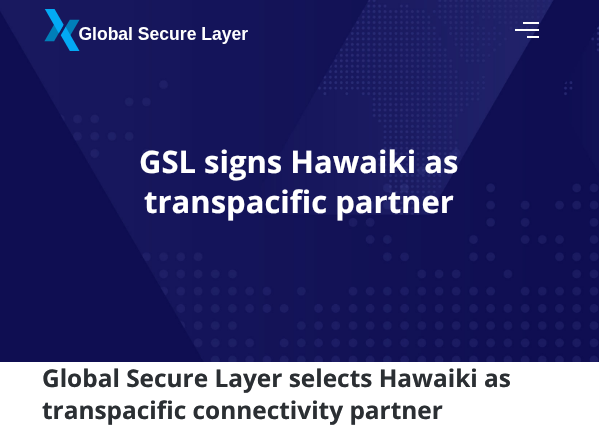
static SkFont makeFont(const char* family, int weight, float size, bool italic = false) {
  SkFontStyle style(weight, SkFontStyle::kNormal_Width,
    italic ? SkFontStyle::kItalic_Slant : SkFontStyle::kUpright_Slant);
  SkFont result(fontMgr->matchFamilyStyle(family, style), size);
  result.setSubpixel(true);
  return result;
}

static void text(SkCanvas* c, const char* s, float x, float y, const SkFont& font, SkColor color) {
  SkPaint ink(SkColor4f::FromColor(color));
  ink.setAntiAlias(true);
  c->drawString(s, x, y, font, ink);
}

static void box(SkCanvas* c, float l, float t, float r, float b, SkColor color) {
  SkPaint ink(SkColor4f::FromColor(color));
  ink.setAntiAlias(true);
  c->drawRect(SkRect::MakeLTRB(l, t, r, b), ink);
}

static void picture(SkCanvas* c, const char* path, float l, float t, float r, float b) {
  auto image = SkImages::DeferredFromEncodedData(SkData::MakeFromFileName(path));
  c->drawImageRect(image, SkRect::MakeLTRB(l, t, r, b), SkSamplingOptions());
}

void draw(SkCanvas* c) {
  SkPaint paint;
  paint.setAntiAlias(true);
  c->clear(0xffffffff);
  picture(c, "img_02.png", 0, 0, 599, 362);
  picture(c, "img_01.png", 44, 9, 248, 51);
  box(c, 515, 29, 539, 31, 0xffffffff);
  box(c, 523, 22, 539, 24, 0xffffffff);
  box(c, 527, 36, 539, 38, 0xffffffff);
  SkFont face1 = makeFont("Open Sans", 700, 31);
  text(c, "GSL signs Hawaiki as", 139, 173, face1, 0xffffffff);
  text(c, "transpacific partner", 144, 213, face1, 0xffffffff);
  SkFont face2 = makeFont("Open Sans", 700, 24.4f);
  text(c, "Global Secure Layer selects Hawaiki as", 42, 387, face2, 0xff2b2f33);
  text(c, "transpacific connectivity partner", 42, 419, face2, 0xff2b2f33);
}
